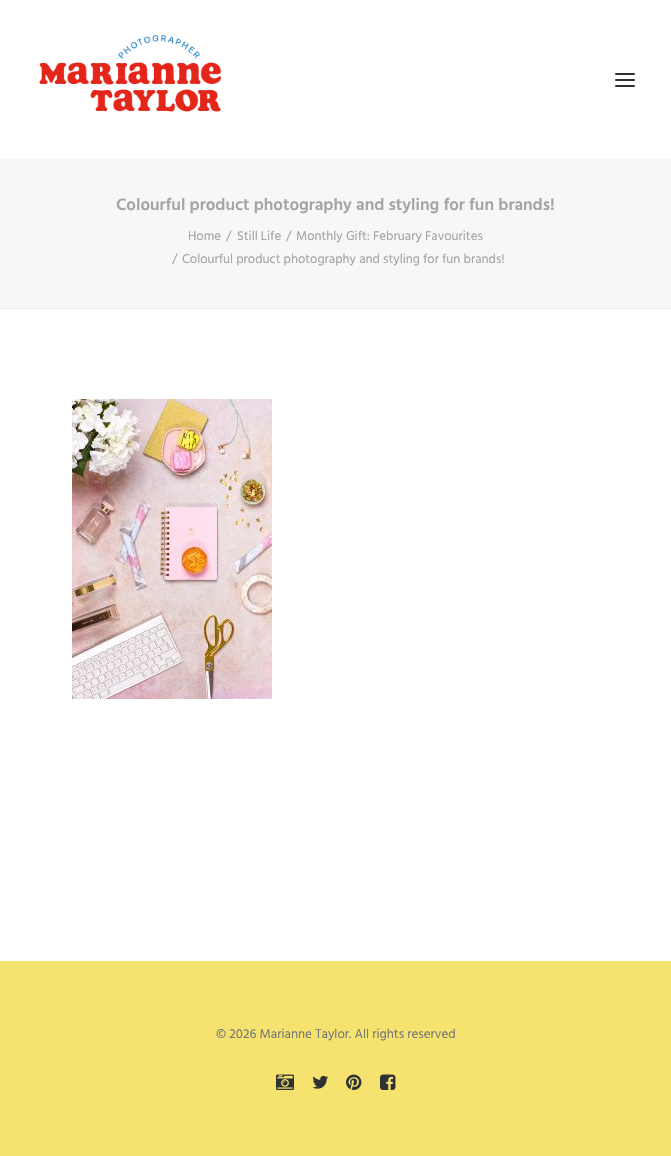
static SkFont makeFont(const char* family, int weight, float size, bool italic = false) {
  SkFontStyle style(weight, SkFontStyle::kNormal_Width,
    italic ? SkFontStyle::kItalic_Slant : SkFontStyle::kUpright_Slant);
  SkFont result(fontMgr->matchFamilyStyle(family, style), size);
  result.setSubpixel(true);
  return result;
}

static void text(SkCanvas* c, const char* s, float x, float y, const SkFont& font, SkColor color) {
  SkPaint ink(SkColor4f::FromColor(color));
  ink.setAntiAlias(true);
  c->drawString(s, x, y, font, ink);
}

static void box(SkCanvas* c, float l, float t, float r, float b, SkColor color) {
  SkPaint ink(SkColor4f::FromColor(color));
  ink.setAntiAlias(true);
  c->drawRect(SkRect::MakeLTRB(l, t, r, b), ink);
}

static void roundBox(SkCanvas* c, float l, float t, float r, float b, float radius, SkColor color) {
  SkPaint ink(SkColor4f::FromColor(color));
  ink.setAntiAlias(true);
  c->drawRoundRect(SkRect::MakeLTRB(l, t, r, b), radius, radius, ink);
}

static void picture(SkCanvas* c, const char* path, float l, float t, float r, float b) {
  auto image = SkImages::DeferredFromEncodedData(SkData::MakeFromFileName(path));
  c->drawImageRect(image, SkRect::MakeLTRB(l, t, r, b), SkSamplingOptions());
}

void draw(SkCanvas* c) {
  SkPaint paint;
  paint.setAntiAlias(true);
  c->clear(0xfff7f7f7);
  box(c, 0, 0, 671, 159, 0xffffffff);
  picture(c, "img_01.png", 39, 34, 221, 112);
  roundBox(c, 615, 79, 635, 81, 1, 0xff303133);
  roundBox(c, 615, 73, 635, 75, 1, 0xff303133);
  roundBox(c, 615, 85, 635, 87, 1, 0xff303133);
  box(c, 0, 308, 671, 309, 0xffeaeaea);
  SkFont face1 = makeFont("Hind", 600, 17);
  text(c, "Colourful product photography and styling for fun brands!", 116, 210, face1, 0xffa4a4a4);
  SkFont face2 = makeFont("Hind", 400, 13);
  text(c, "Home", 188, 240, face2, 0xffa4a4a4);
  text(c, "/", 226, 240, face2, 0xffa4a4a4);
  text(c, "Still Life", 237, 240, face2, 0xffa4a4a4);
  text(c, "/", 286, 240, face2, 0xffa4a4a4);
  text(c, "Monthly Gift: February Favourites", 296, 240, face2, 0xffa4a4a4);
  text(c, "/", 172, 263, face2, 0xffa4a4a4);
  text(c, "Colourful product photography and styling for fun brands!", 182, 263, face2, 0xffa4a4a4);
  box(c, 0, 309, 671, 961, 0xffffffff);
  picture(c, "img_02.png", 72, 399, 272, 699);
  box(c, 0, 961, 671, 1156, 0xfff5e26f);
  SkFont face3 = makeFont("Hind", 400, 13.1f);
  text(c, "© 2026 Marianne Taylor. All rights reserved", 216, 1038, face3, 0xff777777);
  picture(c, "img_03.png", 276, 1074, 294, 1090);
  picture(c, "img_04.png", 312, 1075, 329, 1089);
  picture(c, "img_05.png", 346, 1074, 362, 1090);
  picture(c, "img_06.png", 380, 1074, 396, 1090);
}
